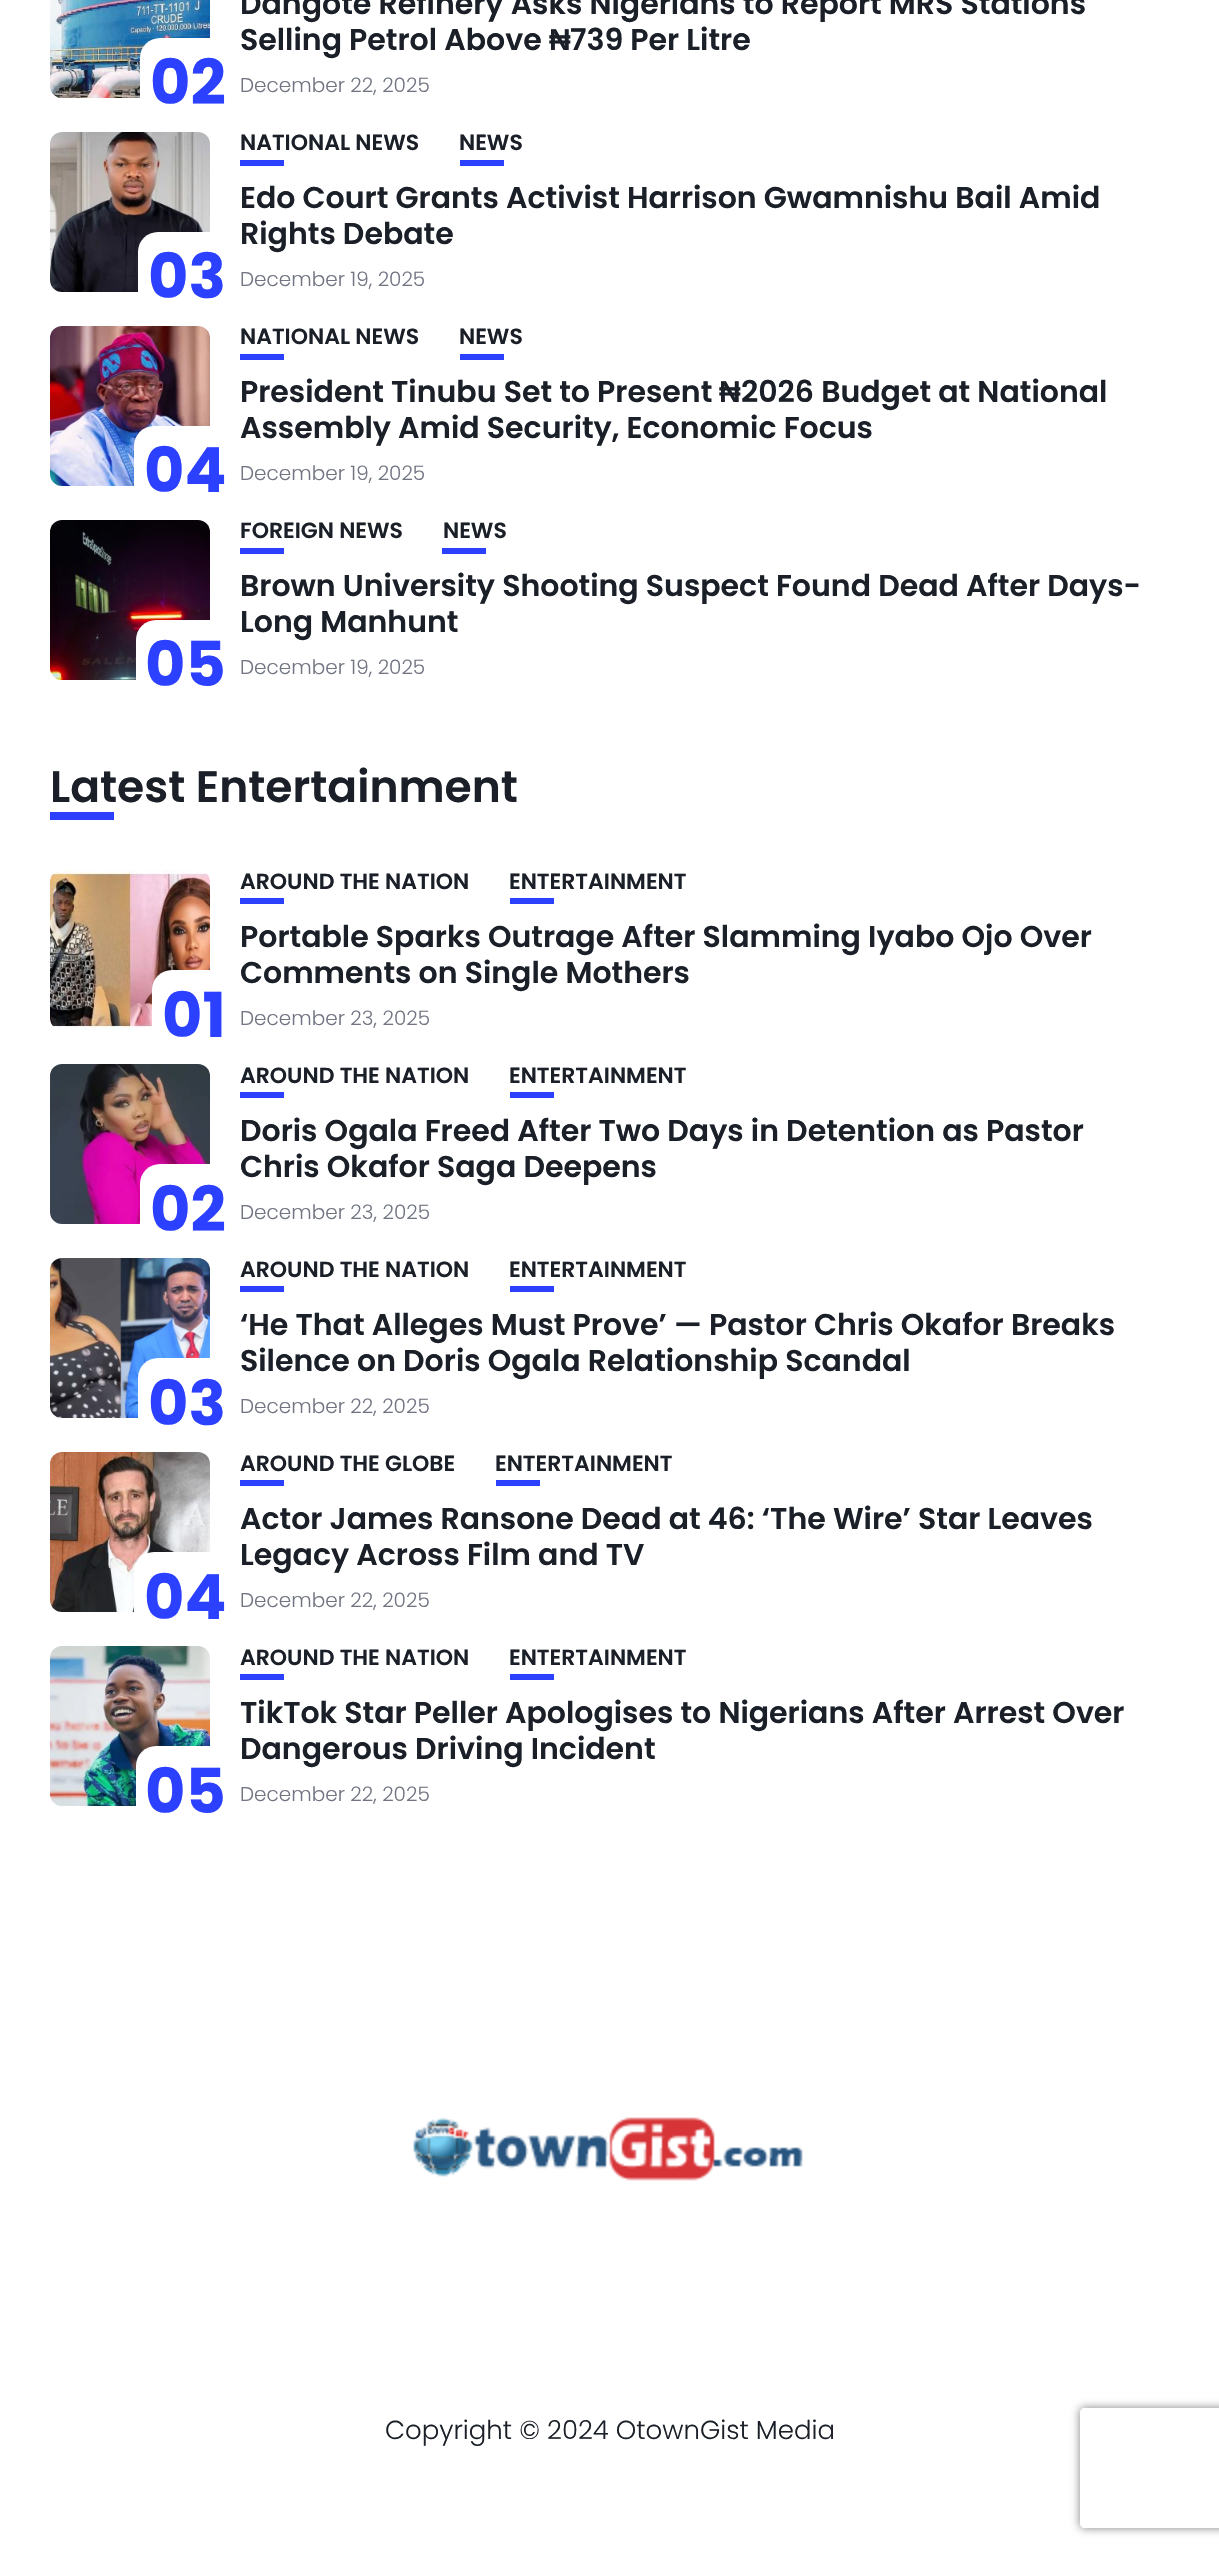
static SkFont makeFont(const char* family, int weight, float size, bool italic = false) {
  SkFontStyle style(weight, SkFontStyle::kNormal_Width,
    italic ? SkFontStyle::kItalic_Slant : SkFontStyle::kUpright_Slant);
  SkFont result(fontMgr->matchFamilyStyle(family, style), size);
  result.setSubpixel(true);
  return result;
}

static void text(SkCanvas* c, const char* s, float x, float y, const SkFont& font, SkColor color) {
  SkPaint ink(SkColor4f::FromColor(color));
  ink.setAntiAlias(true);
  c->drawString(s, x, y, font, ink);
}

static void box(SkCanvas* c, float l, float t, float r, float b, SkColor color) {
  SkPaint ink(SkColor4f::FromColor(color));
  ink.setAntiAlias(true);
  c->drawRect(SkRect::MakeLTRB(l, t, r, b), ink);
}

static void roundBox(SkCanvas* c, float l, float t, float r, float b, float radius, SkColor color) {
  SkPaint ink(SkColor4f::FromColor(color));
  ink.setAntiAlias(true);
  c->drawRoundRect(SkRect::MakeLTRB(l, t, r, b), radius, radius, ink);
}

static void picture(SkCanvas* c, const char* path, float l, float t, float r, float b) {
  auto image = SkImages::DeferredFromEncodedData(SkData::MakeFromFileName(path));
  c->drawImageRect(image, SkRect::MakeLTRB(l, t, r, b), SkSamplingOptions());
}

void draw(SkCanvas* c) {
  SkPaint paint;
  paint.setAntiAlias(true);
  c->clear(0xffffffff);
  picture(c, "img_01.png", 50, 0, 210, 98);
  roundBox(c, 140, 38, 236, 126, 20, 0xffffffff);
  SkFont face1 = makeFont("Poppins", 700, 62);
  text(c, "02", 150, 104, face1, 0xff2c40ff);
  SkFont face2 = makeFont("Poppins", 600, 30);
  text(c, "Dangote Refinery Asks Nigerians to Report MRS Stations", 240, 14, face2, 0xff1a1f28);
  text(c, "Selling Petrol Above", 240, 50, face2, 0xff1a1f28);
  SkFont face3 = makeFont("Liberation Sans", 700, 30);
  text(c, "₦", 549, 50, face3, 0xff1a1f28);
  text(c, "739 Per Litre", 570, 50, face2, 0xff1a1f28);
  SkFont face4 = makeFont("Poppins", 300, 20);
  text(c, "December 22, 2025", 240, 92, face4, 0xff717582);
  picture(c, "img_02.png", 50, 132, 210, 292);
  roundBox(c, 138, 232, 236, 320, 20, 0xffffffff);
  text(c, "03", 148, 298, face1, 0xff2c40ff);
  SkFont face5 = makeFont("Poppins", 600, 22);
  text(c, "NATIONAL NEWS", 240, 150, face5, 0xff1a1f28);
  box(c, 240, 160, 284, 166, 0xff2c40ff);
  text(c, "NEWS", 459, 150, face5, 0xff1a1f28);
  box(c, 460, 160, 504, 166, 0xff2c40ff);
  text(c, "Edo Court Grants Activist Harrison Gwamnishu Bail Amid", 240, 208, face2, 0xff1a1f28);
  text(c, "Rights Debate", 240, 244, face2, 0xff1a1f28);
  text(c, "December 19, 2025", 240, 286, face4, 0xff717582);
  picture(c, "img_03.png", 50, 326, 210, 486);
  roundBox(c, 134, 426, 236, 514, 20, 0xffffffff);
  text(c, "04", 144, 492, face1, 0xff2c40ff);
  text(c, "NATIONAL NEWS", 240, 344, face5, 0xff1a1f28);
  box(c, 240, 354, 284, 360, 0xff2c40ff);
  text(c, "NEWS", 459, 344, face5, 0xff1a1f28);
  box(c, 460, 354, 504, 360, 0xff2c40ff);
  text(c, "President Tinubu Set to Present", 240, 402, face2, 0xff1a1f28);
  text(c, "₦", 719, 402, face3, 0xff1a1f28);
  text(c, "2026 Budget at National", 741, 402, face2, 0xff1a1f28);
  text(c, "Assembly Amid Security, Economic Focus", 240, 438, face2, 0xff1a1f28);
  text(c, "December 19, 2025", 240, 480, face4, 0xff717582);
  picture(c, "img_04.png", 50, 520, 210, 680);
  roundBox(c, 136, 620, 236, 708, 20, 0xffffffff);
  text(c, "05", 145, 686, face1, 0xff2c40ff);
  text(c, "FOREIGN NEWS", 240, 538, face5, 0xff1a1f28);
  box(c, 240, 548, 284, 554, 0xff2c40ff);
  text(c, "NEWS", 443, 538, face5, 0xff1a1f28);
  box(c, 442, 548, 486, 554, 0xff2c40ff);
  text(c, "Brown University Shooting Suspect Found Dead After Days-", 240, 596, face2, 0xff1a1f28);
  text(c, "Long Manhunt", 240, 632, face2, 0xff1a1f28);
  text(c, "December 19, 2025", 240, 674, face4, 0xff717582);
  SkFont face6 = makeFont("Poppins", 600, 44);
  text(c, "Latest Entertainment", 50, 802, face6, 0xff1a1f28);
  box(c, 50, 812, 114, 820, 0xff2c40ff);
  picture(c, "img_05.png", 50, 870, 210, 1030);
  roundBox(c, 152, 970, 236, 1058, 20, 0xffffffff);
  text(c, "01", 162, 1037, face1, 0xff2c40ff);
  text(c, "AROUND THE NATION", 240, 889, face5, 0xff1a1f28);
  box(c, 240, 898, 284, 904, 0xff2c40ff);
  text(c, "ENTERTAINMENT", 509, 889, face5, 0xff1a1f28);
  box(c, 510, 898, 554, 904, 0xff2c40ff);
  text(c, "Portable Sparks Outrage After Slamming Iyabo Ojo Over", 240, 947, face2, 0xff1a1f28);
  text(c, "Comments on Single Mothers", 240, 983, face2, 0xff1a1f28);
  text(c, "December 23, 2025", 240, 1025, face4, 0xff717582);
  picture(c, "img_06.png", 50, 1064, 210, 1224);
  roundBox(c, 140, 1164, 236, 1252, 20, 0xffffffff);
  text(c, "02", 150, 1231, face1, 0xff2c40ff);
  text(c, "AROUND THE NATION", 240, 1083, face5, 0xff1a1f28);
  box(c, 240, 1092, 284, 1098, 0xff2c40ff);
  text(c, "ENTERTAINMENT", 509, 1083, face5, 0xff1a1f28);
  box(c, 510, 1092, 554, 1098, 0xff2c40ff);
  text(c, "Doris Ogala Freed After Two Days in Detention as Pastor", 240, 1141, face2, 0xff1a1f28);
  text(c, "Chris Okafor Saga Deepens", 240, 1177, face2, 0xff1a1f28);
  text(c, "December 23, 2025", 240, 1219, face4, 0xff717582);
  picture(c, "img_07.png", 50, 1258, 210, 1418);
  roundBox(c, 138, 1358, 236, 1446, 20, 0xffffffff);
  text(c, "03", 148, 1425, face1, 0xff2c40ff);
  text(c, "AROUND THE NATION", 240, 1277, face5, 0xff1a1f28);
  box(c, 240, 1286, 284, 1292, 0xff2c40ff);
  text(c, "ENTERTAINMENT", 509, 1277, face5, 0xff1a1f28);
  box(c, 510, 1286, 554, 1292, 0xff2c40ff);
  text(c, "‘He That Alleges Must Prove’ — Pastor Chris Okafor Breaks", 240, 1335, face2, 0xff1a1f28);
  text(c, "Silence on Doris Ogala Relationship Scandal", 240, 1371, face2, 0xff1a1f28);
  text(c, "December 22, 2025", 240, 1413, face4, 0xff717582);
  picture(c, "img_08.png", 50, 1452, 210, 1612);
  roundBox(c, 134, 1552, 236, 1640, 20, 0xffffffff);
  text(c, "04", 144, 1619, face1, 0xff2c40ff);
  text(c, "AROUND THE GLOBE", 240, 1471, face5, 0xff1a1f28);
  box(c, 240, 1480, 284, 1486, 0xff2c40ff);
  text(c, "ENTERTAINMENT", 495, 1471, face5, 0xff1a1f28);
  box(c, 496, 1480, 540, 1486, 0xff2c40ff);
  text(c, "Actor James Ransone Dead at 46: ‘The Wire’ Star Leaves", 240, 1529, face2, 0xff1a1f28);
  text(c, "Legacy Across Film and TV", 240, 1565, face2, 0xff1a1f28);
  text(c, "December 22, 2025", 240, 1607, face4, 0xff717582);
  picture(c, "img_09.png", 50, 1646, 210, 1806);
  roundBox(c, 136, 1746, 236, 1834, 20, 0xffffffff);
  text(c, "05", 145, 1813, face1, 0xff2c40ff);
  text(c, "AROUND THE NATION", 240, 1665, face5, 0xff1a1f28);
  box(c, 240, 1674, 284, 1680, 0xff2c40ff);
  text(c, "ENTERTAINMENT", 509, 1665, face5, 0xff1a1f28);
  box(c, 510, 1674, 554, 1680, 0xff2c40ff);
  text(c, "TikTok Star Peller Apologises to Nigerians After Arrest Over", 240, 1723, face2, 0xff1a1f28);
  text(c, "Dangerous Driving Incident", 240, 1759, face2, 0xff1a1f28);
  text(c, "December 22, 2025", 240, 1801, face4, 0xff717582);
  picture(c, "img_10.png", 413, 2117, 803, 2181);
  SkFont face7 = makeFont("Poppins", 300, 26);
  text(c, "Copyright © 2024 OtownGist Media", 385, 2439, face7, 0xff1a1f28);
  c->save();
  c->clipPath(SkPathBuilder(SkPathFillType::kEvenOdd).moveTo(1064, 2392).lineTo(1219, 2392).lineTo(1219, 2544).lineTo(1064, 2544).close().moveTo(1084, 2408).lineTo(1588, 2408).cubicTo(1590, 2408, 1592, 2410, 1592, 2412).lineTo(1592, 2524).cubicTo(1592, 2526, 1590, 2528, 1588, 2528).lineTo(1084, 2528).cubicTo(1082, 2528, 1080, 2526, 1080, 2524).lineTo(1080, 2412).cubicTo(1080, 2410, 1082, 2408, 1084, 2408).close().detach(), true);
  paint.setColor(0xff808080);
  paint.setMaskFilter(SkMaskFilter::MakeBlur(kNormal_SkBlurStyle, 5));
  c->drawRoundRect(SkRect::MakeLTRB(1080, 2408, 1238, 2528), 4, 4, paint);
  paint.setMaskFilter(nullptr);
  c->restore();
}
